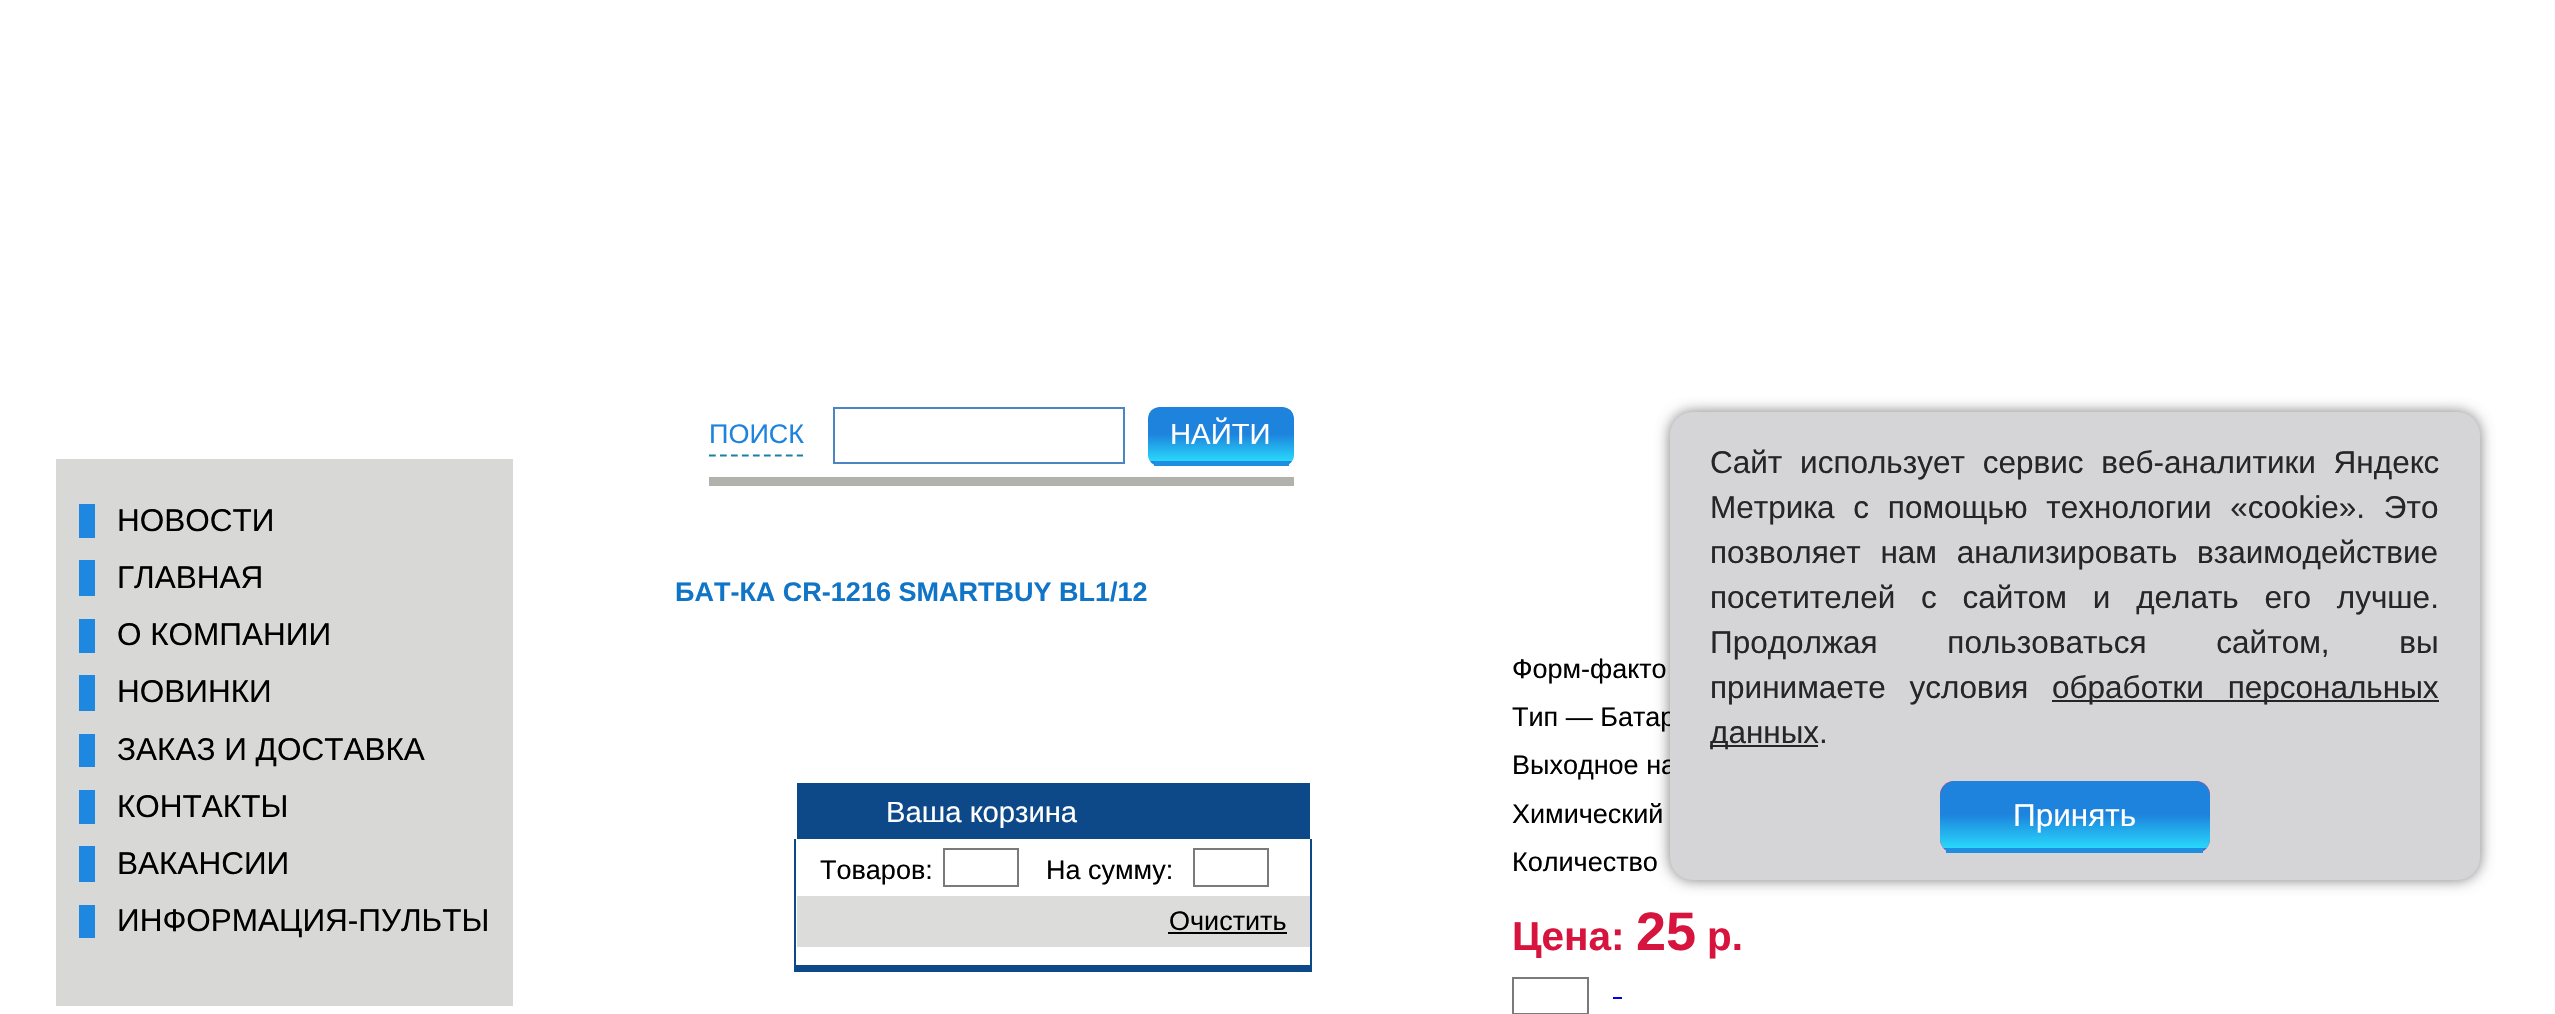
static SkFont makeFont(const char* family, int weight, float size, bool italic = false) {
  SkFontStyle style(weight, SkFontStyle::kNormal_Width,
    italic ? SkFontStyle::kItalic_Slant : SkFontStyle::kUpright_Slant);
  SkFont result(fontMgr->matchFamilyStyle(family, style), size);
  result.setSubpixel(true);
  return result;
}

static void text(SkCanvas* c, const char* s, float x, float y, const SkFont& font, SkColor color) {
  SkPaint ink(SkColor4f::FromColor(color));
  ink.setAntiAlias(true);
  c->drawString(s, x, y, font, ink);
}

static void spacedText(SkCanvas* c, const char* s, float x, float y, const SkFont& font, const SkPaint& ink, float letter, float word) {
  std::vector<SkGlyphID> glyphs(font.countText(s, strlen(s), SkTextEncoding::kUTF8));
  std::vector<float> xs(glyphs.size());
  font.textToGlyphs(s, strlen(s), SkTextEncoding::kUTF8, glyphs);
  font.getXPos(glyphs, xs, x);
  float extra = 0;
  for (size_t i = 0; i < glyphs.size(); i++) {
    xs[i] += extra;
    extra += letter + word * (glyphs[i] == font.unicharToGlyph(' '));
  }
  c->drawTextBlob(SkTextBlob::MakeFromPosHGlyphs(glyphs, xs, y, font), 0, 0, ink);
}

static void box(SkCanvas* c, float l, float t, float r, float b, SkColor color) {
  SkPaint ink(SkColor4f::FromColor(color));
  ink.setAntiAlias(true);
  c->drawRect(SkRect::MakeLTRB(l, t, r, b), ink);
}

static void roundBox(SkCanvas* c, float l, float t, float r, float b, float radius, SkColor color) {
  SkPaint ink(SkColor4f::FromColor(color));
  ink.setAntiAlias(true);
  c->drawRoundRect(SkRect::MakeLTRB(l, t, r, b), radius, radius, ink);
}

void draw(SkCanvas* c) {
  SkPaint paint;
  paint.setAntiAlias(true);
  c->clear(0xffffffff);
  box(c, 56, 459, 513, 1006, 0xffd8d8d6);
  box(c, 79, 504, 95, 538, 0xff1e87e0);
  SkFont face1 = makeFont("Liberation Sans", 400, 31.5f);
  text(c, "НОВОСТИ", 117, 531, face1, 0xff000000);
  box(c, 79, 560, 95, 596, 0xff1e87e0);
  text(c, "ГЛАВНАЯ", 117, 588, face1, 0xff000000);
  box(c, 79, 619, 95, 653, 0xff1e87e0);
  text(c, "О КОМПАНИИ", 117, 645, face1, 0xff000000);
  box(c, 79, 675, 95, 711, 0xff1e87e0);
  text(c, "НОВИНКИ", 117, 702, face1, 0xff000000);
  box(c, 79, 734, 95, 767, 0xff1e87e0);
  text(c, "ЗАКАЗ И ДОСТАВКА", 117, 760, face1, 0xff000000);
  box(c, 79, 790, 95, 824, 0xff1e87e0);
  text(c, "КОНТАКТЫ", 117, 817, face1, 0xff000000);
  box(c, 79, 846, 95, 882, 0xff1e87e0);
  text(c, "ВАКАНСИИ", 117, 874, face1, 0xff000000);
  box(c, 79, 905, 95, 938, 0xff1e87e0);
  text(c, "ИНФОРМАЦИЯ-ПУЛЬТЫ", 117, 931, face1, 0xff000000);
  box(c, 709, 477, 1294, 486, 0xffb2b2ad);
  paint.setStyle(SkPaint::kStroke_Style);
  paint.setStrokeWidth(2.2f);
  paint.setColor(0xff1c7fa3);
  paint.setPathEffect(SkDashPathEffect::Make({{6.75f, 4.23f}}, 0));
  c->drawPath(SkPathBuilder().moveTo(709, 455.5f).lineTo(803, 455.5f).detach(), paint);
  paint.setPathEffect(nullptr);
  SkFont face2 = makeFont("Liberation Sans", 400, 27);
  text(c, "ПОИСК", 709, 443, face2, 0xff1d83de);
  paint.setStrokeWidth(2);
  paint.setColor(0xff4b85c2);
  c->drawRect(SkRect::MakeLTRB(834, 408, 1124, 463), paint);
  c->save();
  c->clipPath(SkPathBuilder().moveTo(1159, 407).lineTo(1283, 407).cubicTo(1289, 407, 1294, 412, 1294, 418).lineTo(1294, 455).cubicTo(1294, 461, 1289, 466, 1283, 466).lineTo(1159, 466).cubicTo(1153, 466, 1148, 461, 1148, 455).lineTo(1148, 418).cubicTo(1148, 412, 1153, 407, 1159, 407).close().detach(), true);
  paint.setStyle(SkPaint::kFill_Style);
  {
    const SkColor colors[] = {0xff1d83dd, 0xff29d7fb};
    const float stops[] = {0.5f, 1};
    const SkPoint ends[] = {{1221, 407}, {1221, 461}};
    paint.setShader(SkGradientShader::MakeLinear(ends, colors, stops, 2, SkTileMode::kClamp));
    paint.setAlpha(255);
  }
  c->drawPath(SkPathBuilder().moveTo(1159, 407).lineTo(1283, 407).cubicTo(1289, 407, 1294, 412, 1294, 418).lineTo(1294, 461).lineTo(1148, 461).lineTo(1148, 418).cubicTo(1148, 412, 1153, 407, 1159, 407).close().detach(), paint);
  {
    const SkColor colors[] = {0xff1d83dd, 0xff29d7fb};
    const float stops[] = {0.5f, 1};
    const SkPoint ends[] = {{1221, 461}, {1221, 515}};
    paint.setShader(SkGradientShader::MakeLinear(ends, colors, stops, 2, SkTileMode::kClamp));
    paint.setAlpha(255);
  }
  c->drawRect(SkRect::MakeLTRB(1148, 461, 1294, 465), paint);
  c->restore();
  box(c, 1154, 461, 1289, 466, 0xff1e8fe0);
  SkFont face3 = makeFont("Liberation Sans", 400, 29.25f);
  text(c, "НАЙТИ", 1170, 444, face3, 0xffffffff);
  SkFont face4 = makeFont("Liberation Sans", 700, 27);
  text(c, "БАТ-КА CR-1216 SMARTBUY BL1/12", 675, 601, face4, 0xff1175c7);
  box(c, 1310, 839, 1312, 970, 0xff0d4988);
  box(c, 794, 839, 796, 970, 0xff0d4988);
  box(c, 794, 965, 1312, 972, 0xff0d4988);
  box(c, 797, 783, 1310, 839, 0xff0d4988);
  text(c, "Ваша корзина", 886, 822, face3, 0xffffffff);
  text(c, "Товаров:", 820, 879, face2, 0xff000000);
  paint.setStyle(SkPaint::kStroke_Style);
  paint.setShader(nullptr);
  paint.setColor(0xff7b7a7a);
  c->drawRect(SkRect::MakeLTRB(944, 849, 1018, 886), paint);
  text(c, "На сумму:", 1046, 879, face2, 0xff000000);
  c->drawRect(SkRect::MakeLTRB(1194, 849, 1268, 886), paint);
  box(c, 797, 896, 1310, 947, 0xffdcdcdb);
  text(c, "Очистить", 1169, 930, face2, 0xff000000);
  box(c, 1168, 932, 1287, 934, 0xff000000);
  text(c, "Форм-факто", 1512, 678, face2, 0xff000000);
  text(c, "Тип — Батар", 1512, 726, face2, 0xff000000);
  text(c, "Выходное на", 1512, 774, face2, 0xff000000);
  text(c, "Химический", 1512, 823, face2, 0xff000000);
  text(c, "Количество", 1512, 871, face2, 0xff000000);
  SkFont face5 = makeFont("Liberation Sans", 700, 40.5f);
  text(c, "Цена:", 1512, 950, face5, 0xffd6143d);
  SkFont face6 = makeFont("Liberation Sans", 700, 54);
  text(c, "25", 1636, 950, face6, 0xffd6143d);
  text(c, "р.", 1707, 950, face5, 0xffd6143d);
  c->drawRect(SkRect::MakeLTRB(1513, 978, 1588, 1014), paint);
  box(c, 1613, 997, 1622, 999, 0xff0000ee);
  paint.setStyle(SkPaint::kFill_Style);
  paint.setColor(0x45000000);
  paint.setMaskFilter(SkMaskFilter::MakeBlur(kNormal_SkBlurStyle, 7));
  c->drawRoundRect(SkRect::MakeLTRB(1670, 412, 2480, 880), 23, 23, paint);
  paint.setMaskFilter(nullptr);
  paint.setMaskFilter(SkMaskFilter::MakeBlur(kNormal_SkBlurStyle, 7));
  c->drawRoundRect(SkRect::MakeLTRB(1670, 412, 2480, 880), 23, 23, paint);
  paint.setMaskFilter(nullptr);
  roundBox(c, 1670, 412, 2480, 880, 23, 0xffd5d4d7);
  paint.setColor(0xff262626);
  spacedText(c, "Сайт использует сервис веб-аналитики Яндекс", 1710, 473, face1, paint, 0, 9);
  spacedText(c, "Метрика с помощью технологии «cookie». Это", 1710, 518, face1, paint, 0, 10);
  spacedText(c, "позволяет нам анализировать взаимодействие", 1710, 563, face1, paint, 0, 11);
  spacedText(c, "посетителей с сайтом и делать его лучше.", 1710, 608, face1, paint, 0, 17);
  spacedText(c, "Продолжая пользоваться сайтом, вы", 1710, 653, face1, paint, 0, 61);
  spacedText(c, "принимаете условия", 1710, 698, face1, paint, 0, 15);
  box(c, 2052, 700, 2439, 702, 0xff252525);
  spacedText(c, "обработки персональных", 2052, 698, face1, paint, 0, 15);
  box(c, 1710, 745, 1818, 747, 0xff252525);
  text(c, "данных.", 1710, 743, face1, 0xff262626);
  roundBox(c, 1940, 781, 2210, 853, 14, 0xfff12f70);
  c->save();
  c->clipPath(SkPathBuilder().moveTo(1954, 781).lineTo(2196, 781).cubicTo(2203.5f, 781, 2210, 787.5f, 2210, 795).lineTo(2210, 839).cubicTo(2210, 846.5f, 2203.5f, 853, 2196, 853).lineTo(1954, 853).cubicTo(1946.5f, 853, 1940, 846.5f, 1940, 839).lineTo(1940, 795).cubicTo(1940, 787.5f, 1946.5f, 781, 1954, 781).close().detach(), true);
  {
    const SkColor colors[] = {0xff1d83dd, 0xff29d7fb};
    const float stops[] = {0.5f, 1};
    const SkPoint ends[] = {{2075, 781}, {2075, 848}};
    paint.setShader(SkGradientShader::MakeLinear(ends, colors, stops, 2, SkTileMode::kClamp));
    paint.setAlpha(255);
  }
  c->drawPath(SkPathBuilder().moveTo(1954, 781).lineTo(2196, 781).cubicTo(2203.5f, 781, 2210, 787.5f, 2210, 795).lineTo(2210, 848).lineTo(1940, 848).lineTo(1940, 795).cubicTo(1940, 787.5f, 1946.5f, 781, 1954, 781).close().detach(), paint);
  {
    const SkColor colors[] = {0xff1d83dd, 0xff29d7fb};
    const float stops[] = {0.5f, 1};
    const SkPoint ends[] = {{2075, 848}, {2075, 916}};
    paint.setShader(SkGradientShader::MakeLinear(ends, colors, stops, 2, SkTileMode::kClamp));
    paint.setAlpha(255);
  }
  c->drawRect(SkRect::MakeLTRB(1940, 848, 2210, 851), paint);
  c->restore();
  box(c, 1946, 848, 2203, 853, 0xff1e8fe0);
  text(c, "Принять", 2013, 826, face1, 0xffffffff);
}
